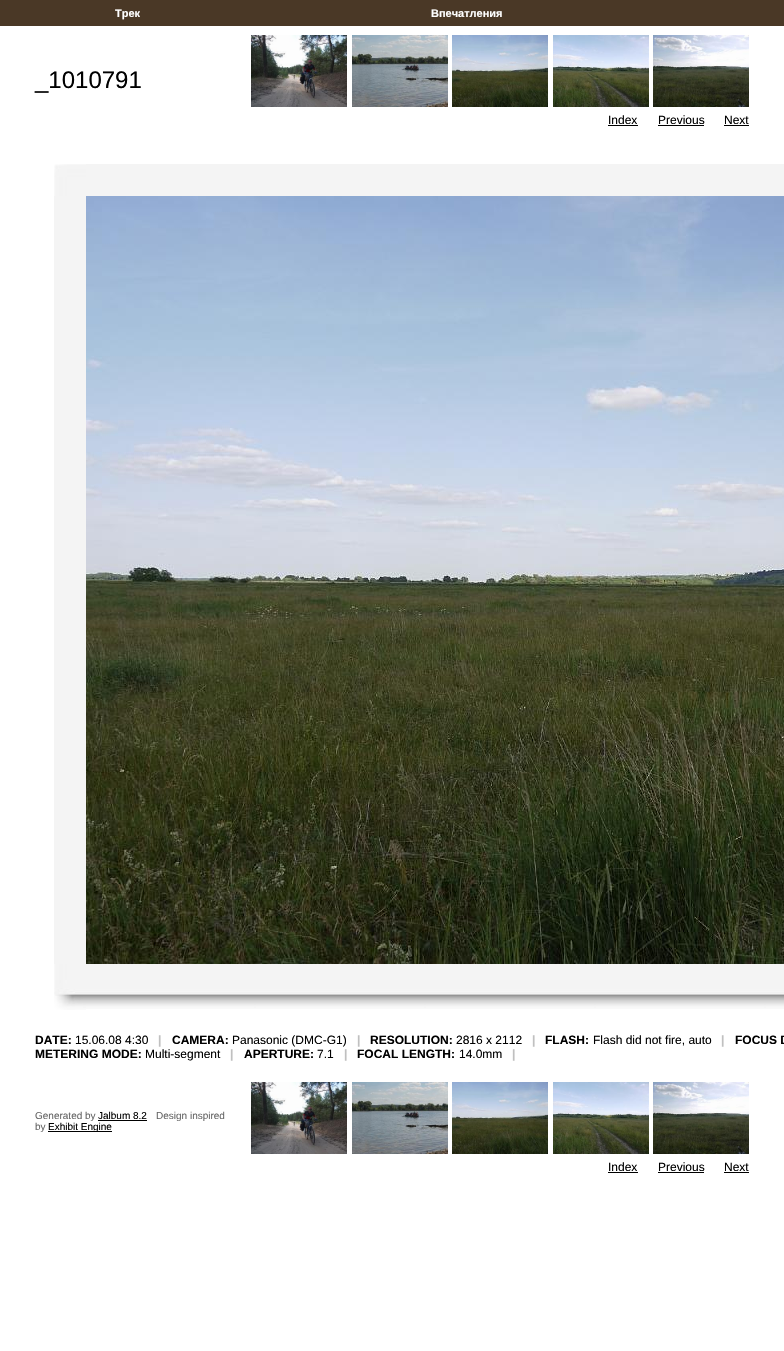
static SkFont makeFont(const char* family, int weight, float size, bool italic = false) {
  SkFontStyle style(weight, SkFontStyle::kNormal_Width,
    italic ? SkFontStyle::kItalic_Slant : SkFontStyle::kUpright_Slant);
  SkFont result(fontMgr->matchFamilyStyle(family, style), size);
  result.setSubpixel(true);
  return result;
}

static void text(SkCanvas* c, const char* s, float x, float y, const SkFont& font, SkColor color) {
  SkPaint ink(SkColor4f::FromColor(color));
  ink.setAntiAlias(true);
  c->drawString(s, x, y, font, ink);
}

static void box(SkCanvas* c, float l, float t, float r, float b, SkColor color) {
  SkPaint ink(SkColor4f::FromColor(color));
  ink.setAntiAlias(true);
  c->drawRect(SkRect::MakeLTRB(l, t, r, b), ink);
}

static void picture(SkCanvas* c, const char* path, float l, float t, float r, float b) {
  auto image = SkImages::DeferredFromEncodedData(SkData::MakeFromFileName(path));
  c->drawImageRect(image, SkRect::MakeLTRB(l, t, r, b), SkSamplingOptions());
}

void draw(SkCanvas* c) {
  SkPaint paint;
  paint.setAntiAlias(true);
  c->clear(0xffffffff);
  box(c, 0, 0, 784, 26, 0xff4a3826);
  SkFont face1 = makeFont("Liberation Sans", 700, 11);
  text(c, "Трек", 115, 17, face1, 0xffffffff);
  text(c, "Впечатления", 431, 17, face1, 0xffffffff);
  SkFont face2 = makeFont("Liberation Sans", 400, 24);
  text(c, "_1010791", 35, 88, face2, 0xff000000);
  picture(c, "img_01.png", 251, 35, 347, 107);
  picture(c, "img_02.png", 352, 35, 448, 107);
  picture(c, "img_03.png", 452, 35, 548, 107);
  picture(c, "img_04.png", 553, 35, 649, 107);
  picture(c, "img_05.png", 653, 35, 749, 107);
  SkFont face3 = makeFont("Liberation Sans", 400, 12);
  text(c, "Index", 608, 124, face3, 0xff000000);
  box(c, 608, 125, 638, 126, 0xff000000);
  text(c, "Previous", 658, 124, face3, 0xff000000);
  box(c, 658, 125, 704, 126, 0xff000000);
  text(c, "Next", 724, 124, face3, 0xff000000);
  box(c, 724, 125, 749, 126, 0xff000000);
  picture(c, "img_06.png", 54, 164, 86, 196);
  box(c, 86, 164, 784, 196, 0xfff4f4f4);
  box(c, 54, 196, 86, 964, 0xfff4f4f4);
  picture(c, "img_07.png", 86, 196, 784, 964);
  picture(c, "img_08.png", 54, 964, 86, 1010);
  picture(c, "img_09.png", 86, 964, 784, 1009);
  SkFont face4 = makeFont("Liberation Sans", 700, 12);
  text(c, "DATE:", 35, 1044, face4, 0xff000000);
  text(c, "15.06.08 4:30", 75, 1044, face3, 0xff000000);
  text(c, "|", 158, 1044, face4, 0xffc0c0c0);
  text(c, "CAMERA:", 172, 1044, face4, 0xff000000);
  text(c, "Panasonic (DMC-G1)", 232, 1044, face3, 0xff000000);
  text(c, "|", 357, 1044, face4, 0xffc0c0c0);
  text(c, "RESOLUTION:", 370, 1044, face4, 0xff000000);
  text(c, "2816 x 2112", 456, 1044, face3, 0xff000000);
  text(c, "|", 532, 1044, face4, 0xffc0c0c0);
  text(c, "FLASH:", 545, 1044, face4, 0xff000000);
  text(c, "Flash did not fire, auto", 593, 1044, face3, 0xff000000);
  text(c, "|", 721, 1044, face4, 0xffc0c0c0);
  text(c, "FOCUS D", 735, 1044, face4, 0xff000000);
  text(c, "METERING MODE:", 35, 1058, face4, 0xff000000);
  text(c, "Multi-segment", 145, 1058, face3, 0xff000000);
  text(c, "|", 230, 1058, face4, 0xffc0c0c0);
  text(c, "APERTURE:", 244, 1058, face4, 0xff000000);
  text(c, "7.1", 317, 1058, face3, 0xff000000);
  text(c, "|", 344, 1058, face4, 0xffc0c0c0);
  text(c, "FOCAL LENGTH:", 357, 1058, face4, 0xff000000);
  text(c, "14.0mm", 459, 1058, face3, 0xff000000);
  text(c, "|", 512, 1058, face4, 0xffc0c0c0);
  SkFont face5 = makeFont("Liberation Sans", 400, 10);
  text(c, "Generated by", 35, 1119, face5, 0xff666666);
  text(c, "Jalbum 8.2", 98, 1119, face5, 0xff000000);
  box(c, 98, 1120, 147, 1121, 0xff000000);
  text(c, "Design inspired", 156, 1119, face5, 0xff666666);
  text(c, "by", 35, 1130, face5, 0xff666666);
  box(c, 48, 1131, 112, 1132, 0xff000000);
  text(c, "Exhibit Engine", 48, 1130, face5, 0xff000000);
  picture(c, "img_01.png", 251, 1082, 347, 1154);
  picture(c, "img_02.png", 352, 1082, 448, 1154);
  picture(c, "img_03.png", 452, 1082, 548, 1154);
  picture(c, "img_04.png", 553, 1082, 649, 1154);
  picture(c, "img_05.png", 653, 1082, 749, 1154);
  text(c, "Index", 608, 1171, face3, 0xff000000);
  box(c, 608, 1172, 638, 1173, 0xff000000);
  text(c, "Previous", 658, 1171, face3, 0xff000000);
  box(c, 658, 1172, 704, 1173, 0xff000000);
  text(c, "Next", 724, 1171, face3, 0xff000000);
  box(c, 724, 1172, 749, 1173, 0xff000000);
}
